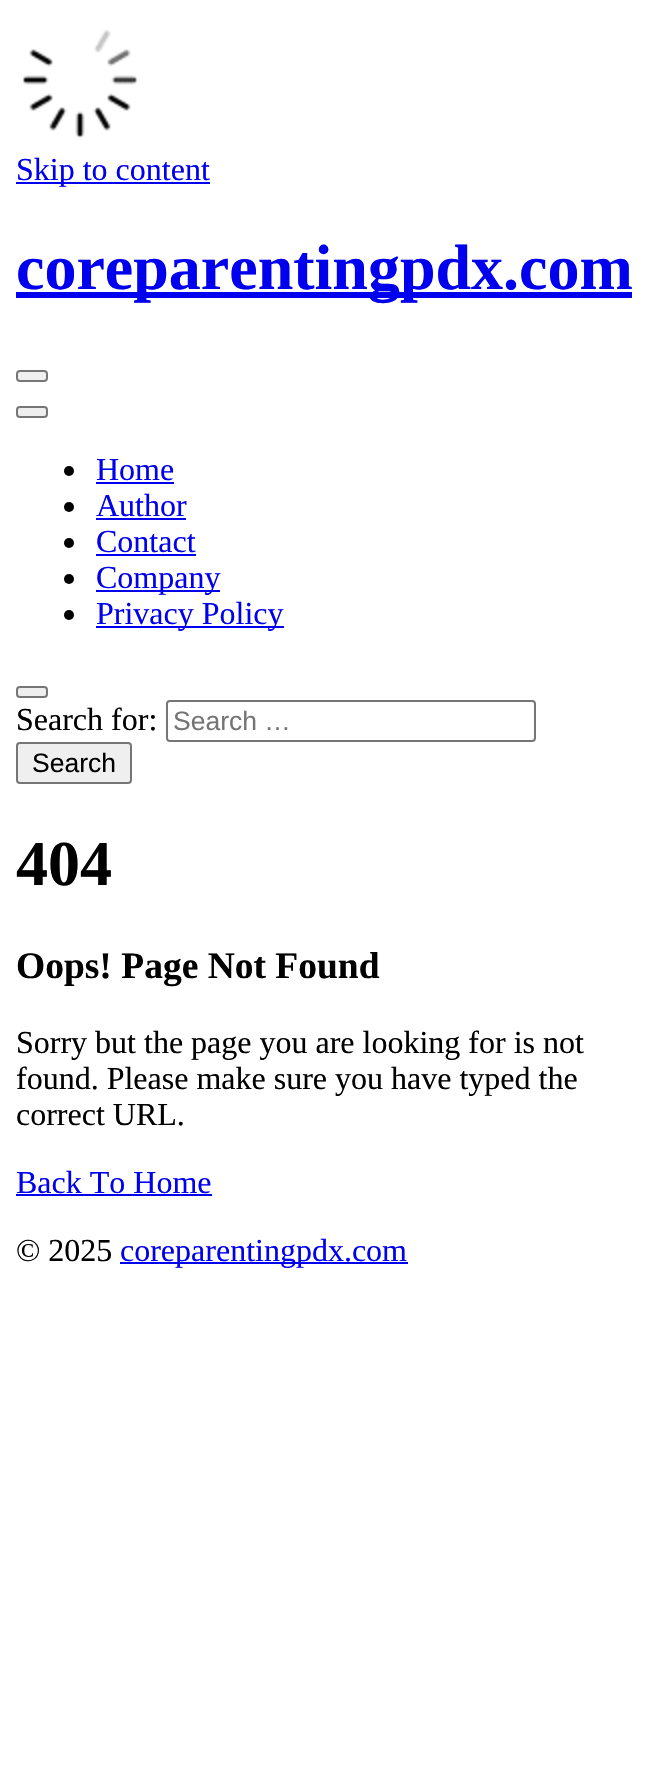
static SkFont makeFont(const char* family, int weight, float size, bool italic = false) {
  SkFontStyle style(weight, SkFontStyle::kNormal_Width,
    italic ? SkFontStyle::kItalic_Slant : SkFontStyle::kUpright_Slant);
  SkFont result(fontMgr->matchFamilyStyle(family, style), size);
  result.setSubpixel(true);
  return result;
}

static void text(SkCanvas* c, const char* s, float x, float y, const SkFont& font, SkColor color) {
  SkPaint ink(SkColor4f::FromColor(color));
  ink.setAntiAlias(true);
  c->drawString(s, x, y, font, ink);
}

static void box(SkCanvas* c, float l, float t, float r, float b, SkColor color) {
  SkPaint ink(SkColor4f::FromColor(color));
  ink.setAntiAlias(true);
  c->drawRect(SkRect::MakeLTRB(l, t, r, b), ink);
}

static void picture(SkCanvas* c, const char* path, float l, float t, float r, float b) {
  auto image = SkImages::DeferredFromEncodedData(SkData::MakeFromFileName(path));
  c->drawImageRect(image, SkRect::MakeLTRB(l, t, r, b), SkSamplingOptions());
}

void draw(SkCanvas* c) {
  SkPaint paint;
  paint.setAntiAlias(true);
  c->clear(0xffffffff);
  picture(c, "img_01.png", 21, 29, 139, 139);
  box(c, 16, 182, 210, 184, 0xff0000ee);
  SkFont face1 = makeFont("Liberation Serif", 400, 32);
  text(c, "Skip to content", 16, 180, face1, 0xff0000ee);
  box(c, 16, 292, 632, 298, 0xff0000ee);
  SkFont face2 = makeFont("Liberation Serif", 700, 64);
  text(c, "coreparentingpdx.com", 16, 289, face2, 0xff0000ee);
  paint.setColor(0xffefefef);
  c->drawRoundRect(SkRect::MakeLTRB(17, 371, 47, 381), 3, 3, paint);
  paint.setStyle(SkPaint::kStroke_Style);
  paint.setStrokeWidth(2);
  paint.setColor(0xff767676);
  c->drawRoundRect(SkRect::MakeLTRB(17, 371, 47, 381), 3, 3, paint);
  paint.setStyle(SkPaint::kFill_Style);
  paint.setColor(0xffefefef);
  c->drawRoundRect(SkRect::MakeLTRB(17, 407, 47, 417), 3, 3, paint);
  paint.setStyle(SkPaint::kStroke_Style);
  paint.setColor(0xff767676);
  c->drawRoundRect(SkRect::MakeLTRB(17, 407, 47, 417), 3, 3, paint);
  paint.setStyle(SkPaint::kFill_Style);
  paint.setColor(0xff000000);
  c->drawCircle(69, 471, 5, paint);
  text(c, "Home", 96, 480, face1, 0xff0000ee);
  box(c, 96, 482, 174, 484, 0xff0000ee);
  c->drawCircle(69, 507, 5, paint);
  text(c, "Author", 96, 516, face1, 0xff0000ee);
  box(c, 96, 518, 186, 520, 0xff0000ee);
  c->drawCircle(69, 543, 5, paint);
  text(c, "Contact", 96, 552, face1, 0xff0000ee);
  box(c, 96, 554, 196, 556, 0xff0000ee);
  c->drawCircle(69, 579, 5, paint);
  box(c, 96, 590, 220, 592, 0xff0000ee);
  text(c, "Company", 96, 588, face1, 0xff0000ee);
  c->drawCircle(69, 615, 5, paint);
  box(c, 96, 626, 284, 628, 0xff0000ee);
  text(c, "Privacy Policy", 96, 624, face1, 0xff0000ee);
  paint.setColor(0xffefefef);
  c->drawRoundRect(SkRect::MakeLTRB(17, 687, 47, 697), 3, 3, paint);
  paint.setStyle(SkPaint::kStroke_Style);
  paint.setColor(0xff767676);
  c->drawRoundRect(SkRect::MakeLTRB(17, 687, 47, 697), 3, 3, paint);
  text(c, "Search for:", 16, 730, face1, 0xff000000);
  c->drawRoundRect(SkRect::MakeLTRB(167, 701, 535, 741), 3, 3, paint);
  SkFont face3 = makeFont("Liberation Sans", 400, 26.5f);
  text(c, "Search …", 173, 730, face3, 0xff757575);
  paint.setStyle(SkPaint::kFill_Style);
  paint.setColor(0xffefefef);
  c->drawRoundRect(SkRect::MakeLTRB(17, 743, 131, 783), 3, 3, paint);
  paint.setStyle(SkPaint::kStroke_Style);
  paint.setColor(0xff767676);
  c->drawRoundRect(SkRect::MakeLTRB(17, 743, 131, 783), 3, 3, paint);
  text(c, "Search", 32, 772, face3, 0xff000000);
  text(c, "404", 16, 885, face2, 0xff000000);
  SkFont face4 = makeFont("Liberation Serif", 700, 37.5f);
  text(c, "Oops! Page Not Found", 16, 978, face4, 0xff000000);
  text(c, "Sorry but the page you are looking for is not", 16, 1053, face1, 0xff000000);
  text(c, "found. Please make sure you have typed the", 16, 1089, face1, 0xff000000);
  text(c, "correct URL.", 16, 1125, face1, 0xff000000);
  text(c, "Back To Home", 16, 1193, face1, 0xff0000ee);
  box(c, 16, 1194, 212, 1196, 0xff0000ee);
  text(c, "© 2025", 16, 1261, face1, 0xff000000);
  box(c, 120, 1262, 408, 1264, 0xff0000ee);
  text(c, "coreparentingpdx.com", 120, 1261, face1, 0xff0000ee);
}
